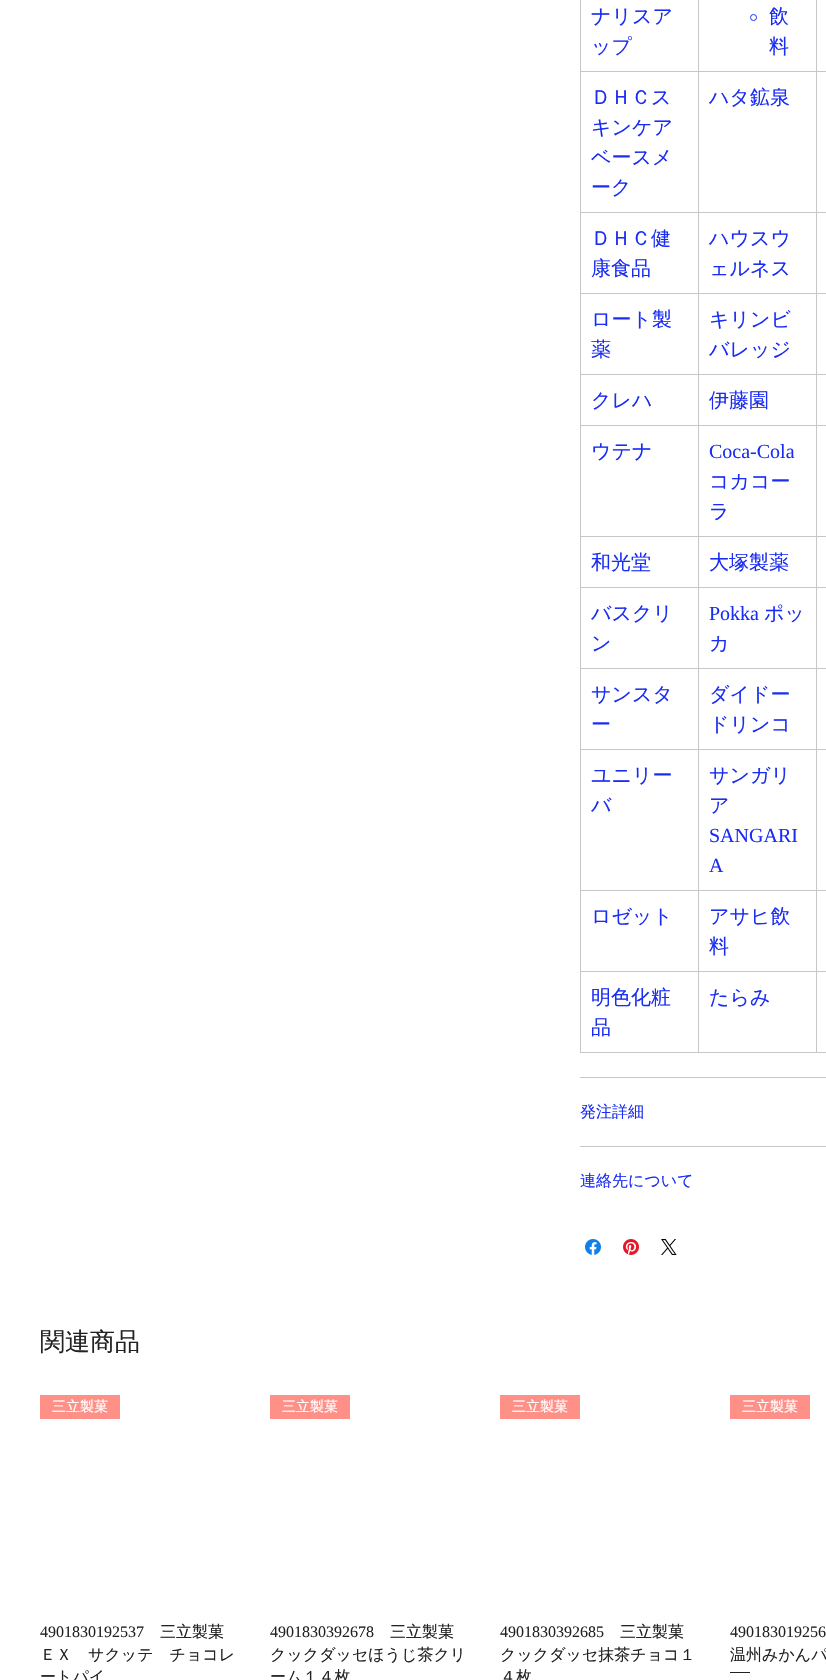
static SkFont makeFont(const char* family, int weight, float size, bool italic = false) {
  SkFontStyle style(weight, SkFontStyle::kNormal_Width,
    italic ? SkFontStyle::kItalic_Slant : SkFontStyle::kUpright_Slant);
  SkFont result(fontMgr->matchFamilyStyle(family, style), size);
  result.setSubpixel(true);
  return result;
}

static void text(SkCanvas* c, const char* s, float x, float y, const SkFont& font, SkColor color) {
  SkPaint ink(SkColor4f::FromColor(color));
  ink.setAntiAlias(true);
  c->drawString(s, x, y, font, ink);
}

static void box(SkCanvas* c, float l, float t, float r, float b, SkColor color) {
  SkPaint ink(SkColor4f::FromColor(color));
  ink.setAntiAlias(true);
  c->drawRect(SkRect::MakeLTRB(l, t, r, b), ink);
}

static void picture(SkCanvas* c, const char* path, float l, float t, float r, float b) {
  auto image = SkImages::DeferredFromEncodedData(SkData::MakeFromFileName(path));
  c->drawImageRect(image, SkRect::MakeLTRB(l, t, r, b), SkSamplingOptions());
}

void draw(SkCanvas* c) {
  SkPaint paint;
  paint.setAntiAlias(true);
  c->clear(0xffffffff);
  box(c, 580, 1077, 826, 1078, 0xffc7c7c7);
  SkFont face1 = makeFont("WenQuanYi Zen Hei", 500, 20);
  text(c, "ナリスア", 591, 23, face1, 0xff1a2df3);
  text(c, "ップ", 591, 53, face1, 0xff1a2df3);
  box(c, 816, 71, 826, 72, 0xffc7c7c7);
  box(c, 816, 212, 826, 213, 0xffc7c7c7);
  box(c, 816, 293, 826, 294, 0xffc7c7c7);
  box(c, 816, 374, 826, 375, 0xffc7c7c7);
  box(c, 816, 425, 826, 426, 0xffc7c7c7);
  box(c, 816, 536, 826, 537, 0xffc7c7c7);
  box(c, 816, 587, 826, 588, 0xffc7c7c7);
  box(c, 816, 668, 826, 669, 0xffc7c7c7);
  box(c, 816, 749, 826, 750, 0xffc7c7c7);
  box(c, 816, 890, 826, 891, 0xffc7c7c7);
  box(c, 816, 971, 826, 972, 0xffc7c7c7);
  box(c, 816, 1052, 826, 1053, 0xffc7c7c7);
  box(c, 816, 971, 817, 1053, 0xffc7c7c7);
  box(c, 698, 971, 817, 972, 0xffc7c7c7);
  box(c, 816, 890, 817, 972, 0xffc7c7c7);
  box(c, 698, 890, 817, 891, 0xffc7c7c7);
  box(c, 816, 749, 817, 891, 0xffc7c7c7);
  box(c, 698, 749, 817, 750, 0xffc7c7c7);
  box(c, 816, 668, 817, 750, 0xffc7c7c7);
  box(c, 698, 668, 817, 669, 0xffc7c7c7);
  box(c, 816, 587, 817, 669, 0xffc7c7c7);
  box(c, 698, 587, 817, 588, 0xffc7c7c7);
  box(c, 816, 536, 817, 588, 0xffc7c7c7);
  box(c, 698, 536, 817, 537, 0xffc7c7c7);
  box(c, 816, 425, 817, 537, 0xffc7c7c7);
  box(c, 698, 425, 817, 426, 0xffc7c7c7);
  box(c, 816, 374, 817, 426, 0xffc7c7c7);
  box(c, 698, 374, 817, 375, 0xffc7c7c7);
  box(c, 816, 293, 817, 375, 0xffc7c7c7);
  box(c, 698, 293, 817, 294, 0xffc7c7c7);
  box(c, 816, 212, 817, 294, 0xffc7c7c7);
  box(c, 698, 212, 817, 213, 0xffc7c7c7);
  box(c, 816, 71, 817, 213, 0xffc7c7c7);
  box(c, 698, 71, 817, 72, 0xffc7c7c7);
  box(c, 698, 1052, 817, 1053, 0xffc7c7c7);
  box(c, 698, 971, 699, 1053, 0xffc7c7c7);
  box(c, 580, 971, 699, 972, 0xffc7c7c7);
  box(c, 698, 890, 699, 972, 0xffc7c7c7);
  box(c, 580, 890, 699, 891, 0xffc7c7c7);
  box(c, 698, 749, 699, 891, 0xffc7c7c7);
  box(c, 580, 749, 699, 750, 0xffc7c7c7);
  box(c, 698, 668, 699, 750, 0xffc7c7c7);
  box(c, 580, 668, 699, 669, 0xffc7c7c7);
  box(c, 698, 587, 699, 669, 0xffc7c7c7);
  box(c, 580, 587, 699, 588, 0xffc7c7c7);
  box(c, 698, 536, 699, 588, 0xffc7c7c7);
  box(c, 580, 536, 699, 537, 0xffc7c7c7);
  box(c, 698, 425, 699, 537, 0xffc7c7c7);
  box(c, 580, 425, 699, 426, 0xffc7c7c7);
  box(c, 698, 374, 699, 426, 0xffc7c7c7);
  box(c, 580, 374, 699, 375, 0xffc7c7c7);
  box(c, 698, 293, 699, 375, 0xffc7c7c7);
  box(c, 580, 293, 699, 294, 0xffc7c7c7);
  box(c, 698, 212, 699, 294, 0xffc7c7c7);
  box(c, 580, 212, 699, 213, 0xffc7c7c7);
  box(c, 698, 71, 699, 213, 0xffc7c7c7);
  box(c, 580, 71, 699, 72, 0xffc7c7c7);
  box(c, 698, 0, 699, 72, 0xffc7c7c7);
  paint.setStyle(SkPaint::kStroke_Style);
  paint.setStrokeWidth(1);
  paint.setColor(0xff1a2df3);
  c->drawCircle(753.5f, 17.5f, 3, paint);
  text(c, "飲", 769, 23, face1, 0xff1a2df3);
  text(c, "料", 769, 53, face1, 0xff1a2df3);
  box(c, 816, 0, 817, 72, 0xffc7c7c7);
  box(c, 580, 1052, 699, 1053, 0xffc7c7c7);
  box(c, 580, 971, 581, 1053, 0xffc7c7c7);
  box(c, 580, 890, 581, 972, 0xffc7c7c7);
  box(c, 580, 749, 581, 891, 0xffc7c7c7);
  box(c, 580, 668, 581, 750, 0xffc7c7c7);
  box(c, 580, 587, 581, 669, 0xffc7c7c7);
  box(c, 580, 536, 581, 588, 0xffc7c7c7);
  box(c, 580, 425, 581, 537, 0xffc7c7c7);
  box(c, 580, 374, 581, 426, 0xffc7c7c7);
  box(c, 580, 293, 581, 375, 0xffc7c7c7);
  box(c, 580, 212, 581, 294, 0xffc7c7c7);
  box(c, 580, 0, 581, 213, 0xffc7c7c7);
  text(c, "ＤＨＣス", 591, 104, face1, 0xff1a2df3);
  text(c, "キンケア", 591, 134, face1, 0xff1a2df3);
  text(c, "ベースメ", 591, 164, face1, 0xff1a2df3);
  text(c, "ーク", 591, 194, face1, 0xff1a2df3);
  text(c, "ハタ鉱泉", 709, 104, face1, 0xff1a2df3);
  text(c, "ＤＨＣ健", 591, 245, face1, 0xff1a2df3);
  text(c, "康食品", 591, 275, face1, 0xff1a2df3);
  text(c, "ハウスウ", 709, 245, face1, 0xff1a2df3);
  text(c, "ェルネス", 709, 275, face1, 0xff1a2df3);
  text(c, "ロート製", 591, 326, face1, 0xff1a2df3);
  text(c, "薬", 591, 356, face1, 0xff1a2df3);
  text(c, "キリンビ", 709, 326, face1, 0xff1a2df3);
  text(c, "バレッジ", 709, 356, face1, 0xff1a2df3);
  text(c, "クレハ", 591, 407, face1, 0xff1a2df3);
  text(c, "伊藤園", 709, 407, face1, 0xff1a2df3);
  text(c, "ウテナ", 591, 458, face1, 0xff1a2df3);
  SkFont face2 = makeFont("Liberation Serif", 400, 20);
  text(c, "Coca-Cola", 709, 458, face2, 0xff1a2df3);
  text(c, "コカコー", 709, 488, face1, 0xff1a2df3);
  text(c, "ラ", 709, 518, face1, 0xff1a2df3);
  text(c, "和光堂", 591, 569, face1, 0xff1a2df3);
  text(c, "大塚製薬", 709, 569, face1, 0xff1a2df3);
  text(c, "バスクリ", 591, 620, face1, 0xff1a2df3);
  text(c, "ン", 591, 650, face1, 0xff1a2df3);
  text(c, "Pokka", 709, 620, face2, 0xff1a2df3);
  text(c, "ポッ", 764, 620, face1, 0xff1a2df3);
  text(c, "カ", 709, 650, face1, 0xff1a2df3);
  text(c, "サンスタ", 591, 701, face1, 0xff1a2df3);
  text(c, "ー", 591, 731, face1, 0xff1a2df3);
  text(c, "ダイドー", 709, 701, face1, 0xff1a2df3);
  text(c, "ドリンコ", 709, 731, face1, 0xff1a2df3);
  text(c, "ユニリー", 591, 782, face1, 0xff1a2df3);
  text(c, "バ", 591, 812, face1, 0xff1a2df3);
  text(c, "サンガリ", 709, 782, face1, 0xff1a2df3);
  text(c, "ア", 709, 812, face1, 0xff1a2df3);
  text(c, "SANGARI", 709, 842, face2, 0xff1a2df3);
  text(c, "A", 709, 872, face2, 0xff1a2df3);
  text(c, "ロゼット", 591, 923, face1, 0xff1a2df3);
  text(c, "アサヒ飲", 709, 923, face1, 0xff1a2df3);
  text(c, "料", 709, 953, face1, 0xff1a2df3);
  text(c, "明色化粧", 591, 1004, face1, 0xff1a2df3);
  text(c, "品", 591, 1034, face1, 0xff1a2df3);
  text(c, "たらみ", 709, 1004, face1, 0xff1a2df3);
  box(c, 580, 1146, 826, 1147, 0xffc7c7c7);
  SkFont face3 = makeFont("WenQuanYi Zen Hei", 500, 16);
  text(c, "発注詳細", 580, 1117, face3, 0xff1a2df3);
  text(c, "連絡先について", 580, 1186, face3, 0xff1a2df3);
  picture(c, "img_01.png", 585, 1239, 601, 1255);
  picture(c, "img_02.png", 623, 1239, 639, 1255);
  picture(c, "img_03.png", 661, 1239, 677, 1255);
  SkFont face4 = makeFont("WenQuanYi Zen Hei", 500, 25);
  text(c, "関連商品", 40, 1350, face4, 0xff222222);
  box(c, 40, 1395, 120, 1419, 0xffff9087);
  SkFont face5 = makeFont("WenQuanYi Zen Hei", 500, 14);
  text(c, "三立製菓", 52, 1411, face5, 0xffffffff);
  SkFont face6 = makeFont("Liberation Serif", 400, 16);
  text(c, "4901830192537", 40, 1637, face6, 0xff222222);
  text(c, "三立製菓", 160, 1637, face3, 0xff222222);
  text(c, "ＥＸ　サクッテ　チョコレ", 40, 1660, face3, 0xff222222);
  text(c, "ートパイ", 40, 1682, face3, 0xff222222);
  box(c, 270, 1395, 350, 1419, 0xffff9087);
  text(c, "三立製菓", 282, 1411, face5, 0xffffffff);
  text(c, "4901830392678", 270, 1637, face6, 0xff222222);
  text(c, "三立製菓", 390, 1637, face3, 0xff222222);
  text(c, "クックダッセほうじ茶クリ", 270, 1660, face3, 0xff222222);
  text(c, "ーム１４枚", 270, 1682, face3, 0xff222222);
  box(c, 500, 1395, 580, 1419, 0xffff9087);
  text(c, "三立製菓", 512, 1411, face5, 0xffffffff);
  text(c, "4901830392685", 500, 1637, face6, 0xff222222);
  text(c, "三立製菓", 620, 1637, face3, 0xff222222);
  text(c, "クックダッセ抹茶チョコ１", 500, 1660, face3, 0xff222222);
  text(c, "４枚", 500, 1682, face3, 0xff222222);
  box(c, 730, 1395, 810, 1419, 0xffff9087);
  text(c, "三立製菓", 742, 1411, face5, 0xffffffff);
  text(c, "490183019256", 730, 1637, face6, 0xff222222);
  text(c, "温州みかんパ", 730, 1660, face3, 0xff222222);
  box(c, 730, 1672, 750, 1673, 0xff222222);
}
